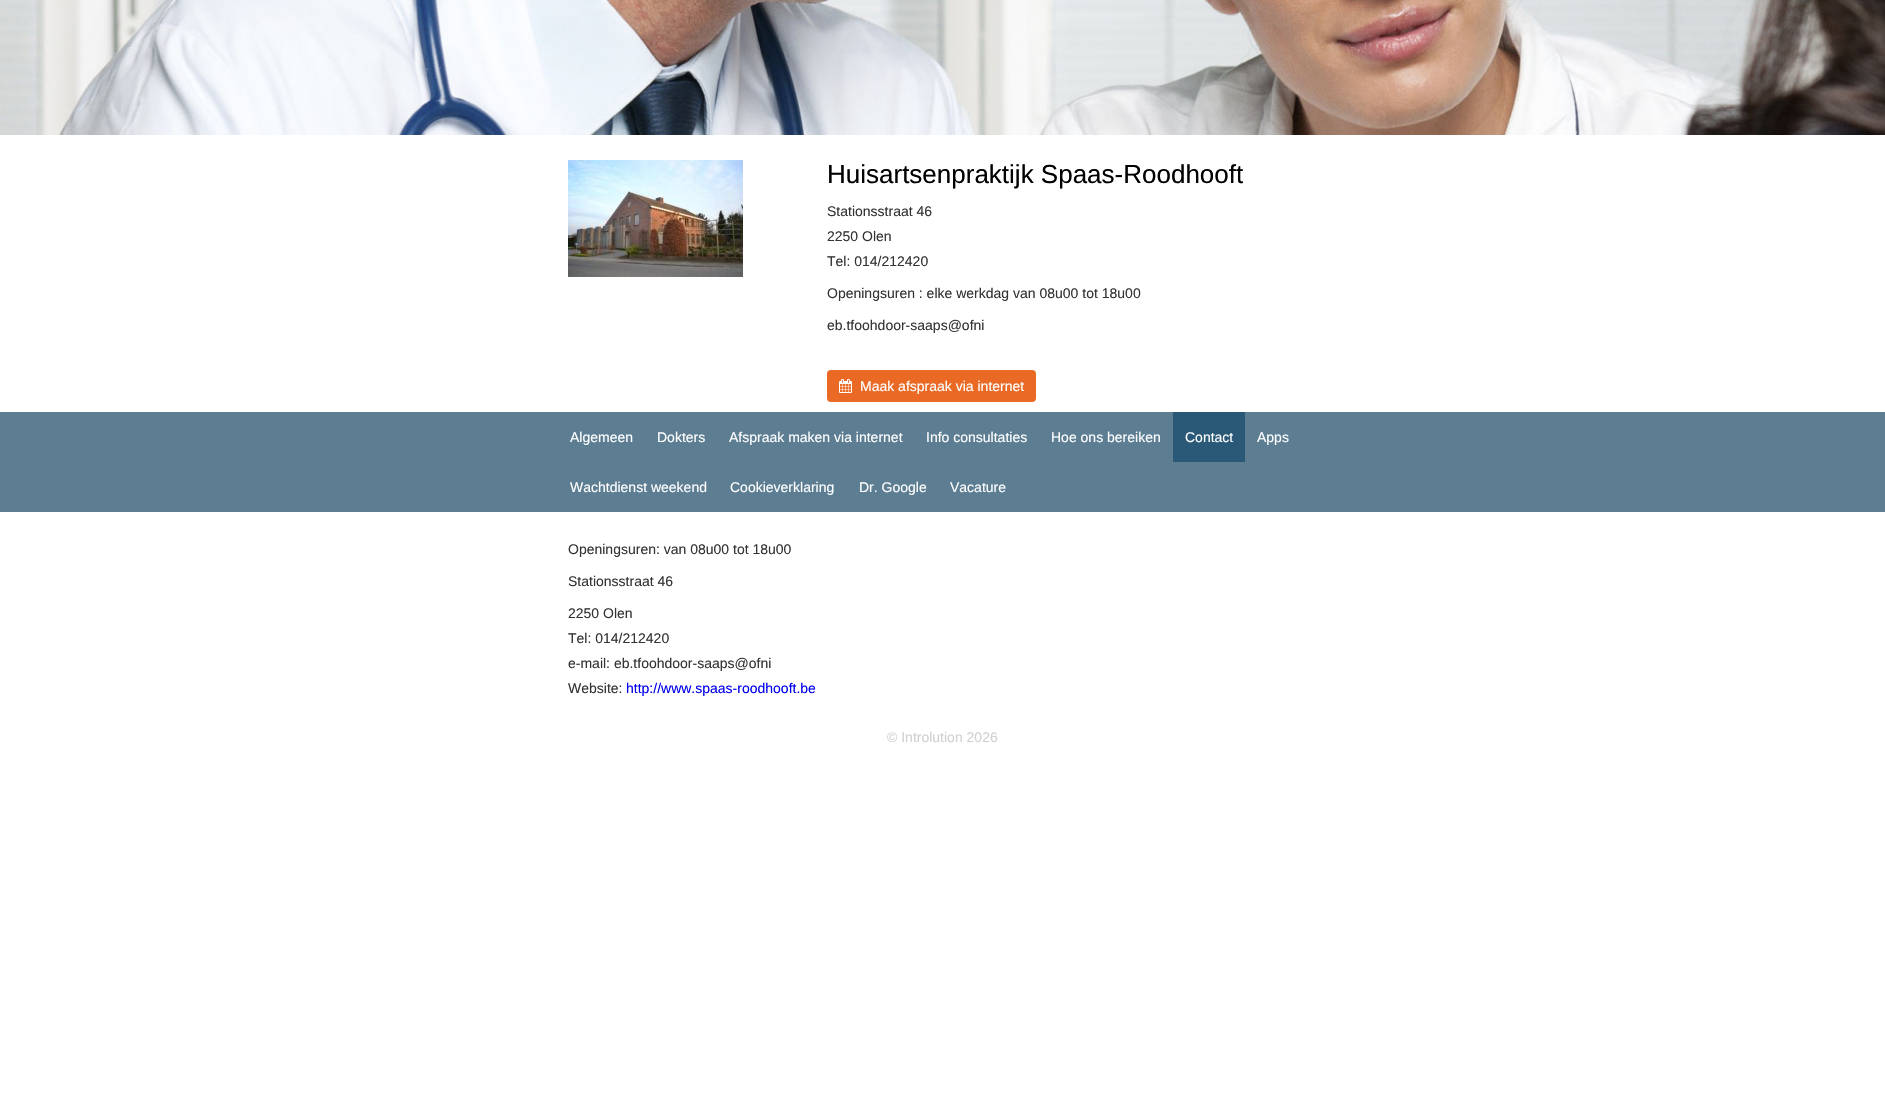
static SkFont makeFont(const char* family, int weight, float size, bool italic = false) {
  SkFontStyle style(weight, SkFontStyle::kNormal_Width,
    italic ? SkFontStyle::kItalic_Slant : SkFontStyle::kUpright_Slant);
  SkFont result(fontMgr->matchFamilyStyle(family, style), size);
  result.setSubpixel(true);
  return result;
}

static void text(SkCanvas* c, const char* s, float x, float y, const SkFont& font, SkColor color) {
  SkPaint ink(SkColor4f::FromColor(color));
  ink.setAntiAlias(true);
  c->drawString(s, x, y, font, ink);
}

static void box(SkCanvas* c, float l, float t, float r, float b, SkColor color) {
  SkPaint ink(SkColor4f::FromColor(color));
  ink.setAntiAlias(true);
  c->drawRect(SkRect::MakeLTRB(l, t, r, b), ink);
}

static void roundBox(SkCanvas* c, float l, float t, float r, float b, float radius, SkColor color) {
  SkPaint ink(SkColor4f::FromColor(color));
  ink.setAntiAlias(true);
  c->drawRoundRect(SkRect::MakeLTRB(l, t, r, b), radius, radius, ink);
}

static void picture(SkCanvas* c, const char* path, float l, float t, float r, float b) {
  auto image = SkImages::DeferredFromEncodedData(SkData::MakeFromFileName(path));
  c->drawImageRect(image, SkRect::MakeLTRB(l, t, r, b), SkSamplingOptions());
}

void draw(SkCanvas* c) {
  SkPaint paint;
  paint.setAntiAlias(true);
  c->clear(0xffffffff);
  picture(c, "img_01.png", 0, 0, 1885, 135);
  picture(c, "img_02.png", 568, 160, 743, 277);
  SkFont face1 = makeFont("Liberation Sans", 400, 26);
  text(c, "Huisartsenpraktijk Spaas-Roodhooft", 827, 183, face1, 0xff000000);
  SkFont face2 = makeFont("Liberation Sans", 400, 14);
  text(c, "Stationsstraat 46", 827, 216, face2, 0xff333333);
  text(c, "2250 Olen", 827, 241, face2, 0xff333333);
  text(c, "Tel: 014/212420", 827, 266, face2, 0xff333333);
  text(c, "Openingsuren : elke werkdag van 08u00 tot 18u00", 827, 298, face2, 0xff333333);
  text(c, "eb.tfoohdoor-saaps@ofni", 827, 330, face2, 0xff333333);
  roundBox(c, 827, 370, 1036, 402, 4, 0xffea6924);
  picture(c, "img_03.png", 839, 379, 852, 393);
  text(c, "Maak afspraak via internet", 860, 391, face2, 0xffffffff);
  box(c, 0, 412, 1885, 512, 0xff5c7d92);
  text(c, "Algemeen", 570, 442, face2, 0xffffffff);
  text(c, "Dokters", 657, 442, face2, 0xffffffff);
  text(c, "Afspraak maken via internet", 729, 442, face2, 0xffffffff);
  text(c, "Info consultaties", 926, 442, face2, 0xffffffff);
  text(c, "Hoe ons bereiken", 1051, 442, face2, 0xffffffff);
  box(c, 1173, 412, 1245, 462, 0xff295976);
  text(c, "Contact", 1185, 442, face2, 0xffffffff);
  text(c, "Apps", 1257, 442, face2, 0xffffffff);
  text(c, "Wachtdienst weekend", 570, 492, face2, 0xffffffff);
  text(c, "Cookieverklaring", 730, 492, face2, 0xffffffff);
  text(c, "Dr. Google", 859, 492, face2, 0xffffffff);
  text(c, "Vacature", 950, 492, face2, 0xffffffff);
  text(c, "Openingsuren: van 08u00 tot 18u00", 568, 554, face2, 0xff333333);
  text(c, "Stationsstraat 46", 568, 586, face2, 0xff333333);
  text(c, "2250 Olen", 568, 618, face2, 0xff333333);
  text(c, "Tel: 014/212420", 568, 643, face2, 0xff333333);
  text(c, "e-mail: eb.tfoohdoor-saaps@ofni", 568, 668, face2, 0xff333333);
  text(c, "Website:", 568, 693, face2, 0xff333333);
  text(c, "http://www.spaas-roodhooft.be", 626, 693, face2, 0xff0000ee);
  text(c, "© Introlution 2026", 887, 742, face2, 0xffd1d1d1);
}
